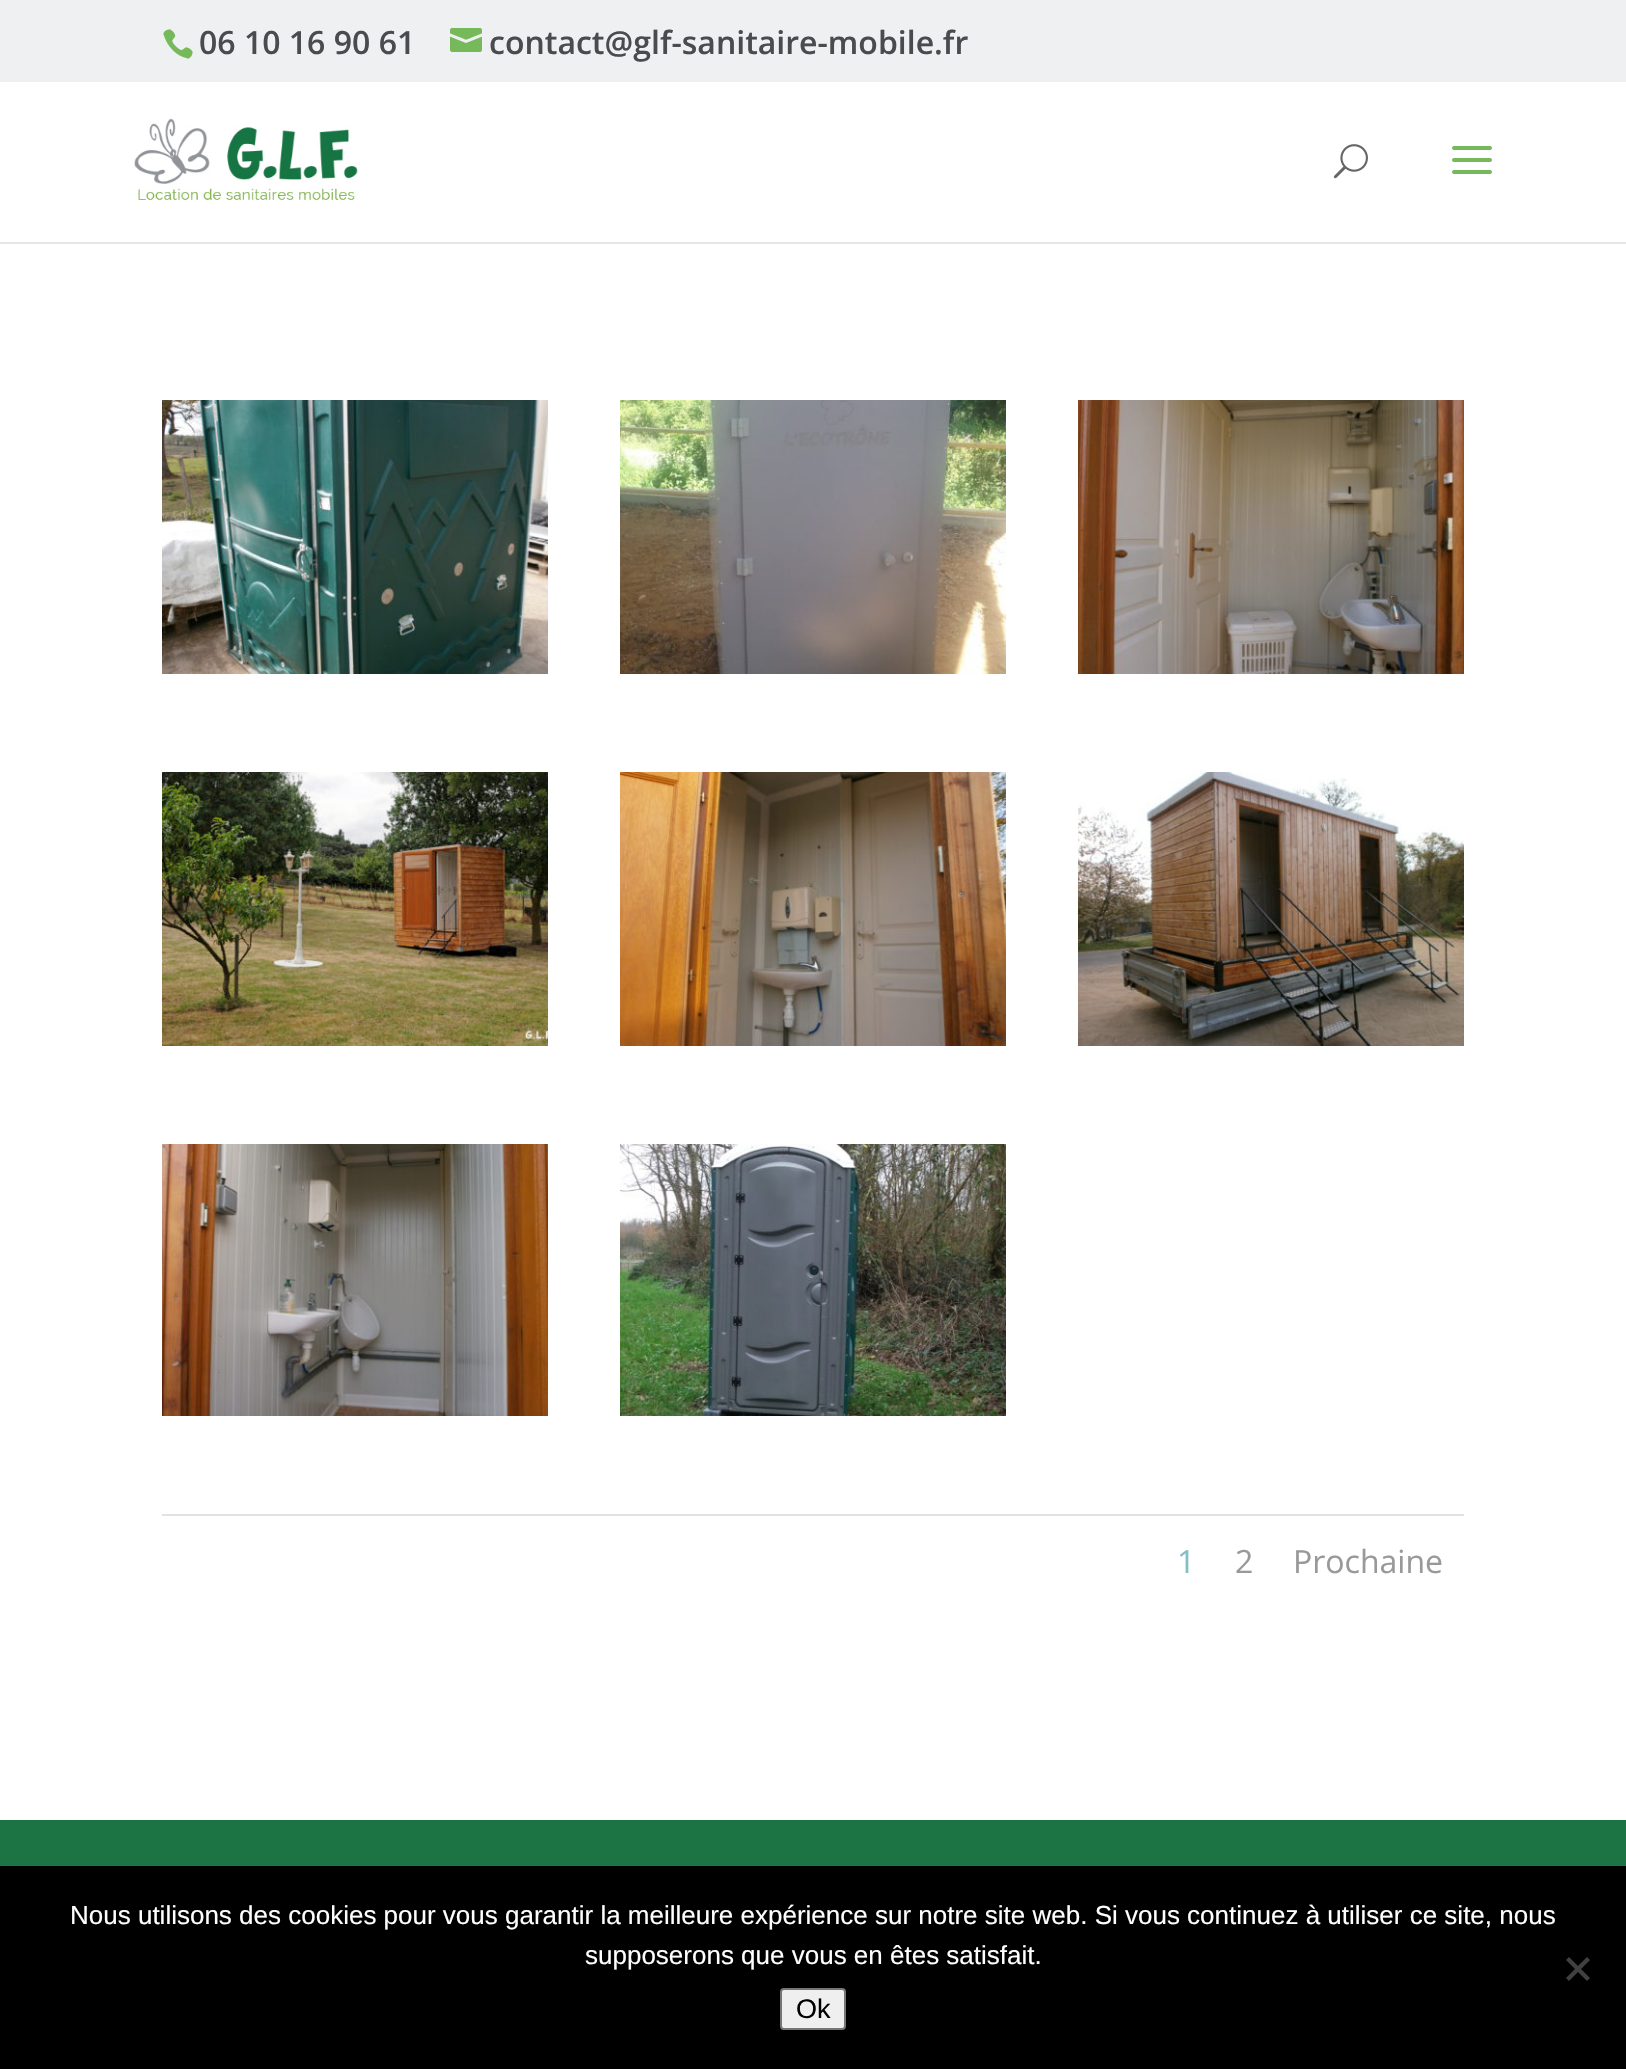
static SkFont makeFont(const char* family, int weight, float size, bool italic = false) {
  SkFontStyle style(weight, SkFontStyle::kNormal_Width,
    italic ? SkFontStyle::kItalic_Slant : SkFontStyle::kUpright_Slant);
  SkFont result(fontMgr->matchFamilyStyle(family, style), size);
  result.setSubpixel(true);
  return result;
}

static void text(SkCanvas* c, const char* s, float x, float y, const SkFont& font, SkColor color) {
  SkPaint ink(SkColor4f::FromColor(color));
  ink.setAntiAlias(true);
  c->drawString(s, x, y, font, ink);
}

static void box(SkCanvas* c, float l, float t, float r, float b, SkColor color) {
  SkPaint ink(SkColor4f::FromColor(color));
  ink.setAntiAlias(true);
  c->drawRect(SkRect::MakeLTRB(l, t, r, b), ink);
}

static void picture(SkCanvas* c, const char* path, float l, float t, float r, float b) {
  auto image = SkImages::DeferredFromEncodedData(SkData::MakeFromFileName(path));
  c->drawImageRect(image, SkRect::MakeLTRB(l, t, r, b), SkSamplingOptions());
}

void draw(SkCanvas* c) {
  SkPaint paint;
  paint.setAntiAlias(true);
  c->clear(0xffffffff);
  box(c, 0, 0, 1626, 82, 0xffeef0f1);
  picture(c, "img_01.png", 163, 29, 193, 59);
  SkFont face1 = makeFont("Open Sans", 600, 32);
  text(c, "06 10 16 90 61", 199, 54, face1, 0xff494b4e);
  picture(c, "img_02.png", 450, 28, 482, 52);
  text(c, "contact@glf-sanitaire-mobile.fr", 489, 54, face1, 0xff494b4e);
  box(c, 0, 242, 1626, 244, 0xffe6e6e6);
  picture(c, "img_03.png", 134, 118, 358, 200);
  picture(c, "img_04.png", 1333, 144, 1368, 179);
  picture(c, "img_05.png", 1452, 146, 1492, 174);
  picture(c, "img_06.png", 162, 400, 548, 674);
  picture(c, "img_07.png", 620, 400, 1006, 674);
  picture(c, "img_08.png", 1078, 400, 1464, 674);
  picture(c, "img_09.png", 162, 772, 548, 1046);
  picture(c, "img_10.png", 620, 772, 1006, 1046);
  picture(c, "img_11.png", 1078, 772, 1464, 1046);
  picture(c, "img_12.png", 162, 1144, 548, 1416);
  picture(c, "img_13.png", 620, 1144, 1006, 1416);
  box(c, 162, 1514, 1464, 1516, 0xffe2e2e2);
  SkFont face2 = makeFont("Open Sans", 400, 32);
  text(c, "1", 1177, 1573, face2, 0xff82c0c7);
  text(c, "2", 1235, 1573, face2, 0xff999999);
  text(c, "Prochaine", 1293, 1573, face2, 0xff999999);
  box(c, 0, 1820, 1626, 1866, 0xff1c7444);
  box(c, 0, 1866, 1626, 2069, 0xff000000);
  SkFont face3 = makeFont("Liberation Sans", 400, 26);
  text(c, "Nous utilisons des cookies pour vous garantir la meilleure expérience sur notre site web. Si vous continuez à utiliser ce site, nous", 70, 1924, face3, 0xffffffff);
  text(c, "supposerons que vous en êtes satisfait.", 585, 1964, face3, 0xffffffff);
  paint.setColor(0xff404040);
  c->drawPath(SkPathBuilder().moveTo(1587, 1957).lineTo(1590, 1960).lineTo(1569, 1981).lineTo(1566, 1978).close().detach(), paint);
  c->drawPath(SkPathBuilder().moveTo(1566, 1960).lineTo(1569, 1957).lineTo(1590, 1978).lineTo(1587, 1981).close().detach(), paint);
  paint.setColor(0xffefefef);
  c->drawRoundRect(SkRect::MakeLTRB(781, 1989, 845, 2029), 3, 3, paint);
  paint.setStyle(SkPaint::kStroke_Style);
  paint.setStrokeWidth(2);
  paint.setColor(0xff767676);
  c->drawRoundRect(SkRect::MakeLTRB(781, 1989, 845, 2029), 3, 3, paint);
  SkFont face4 = makeFont("Liberation Sans", 400, 27);
  text(c, "Ok", 796, 2018, face4, 0xff000000);
}
